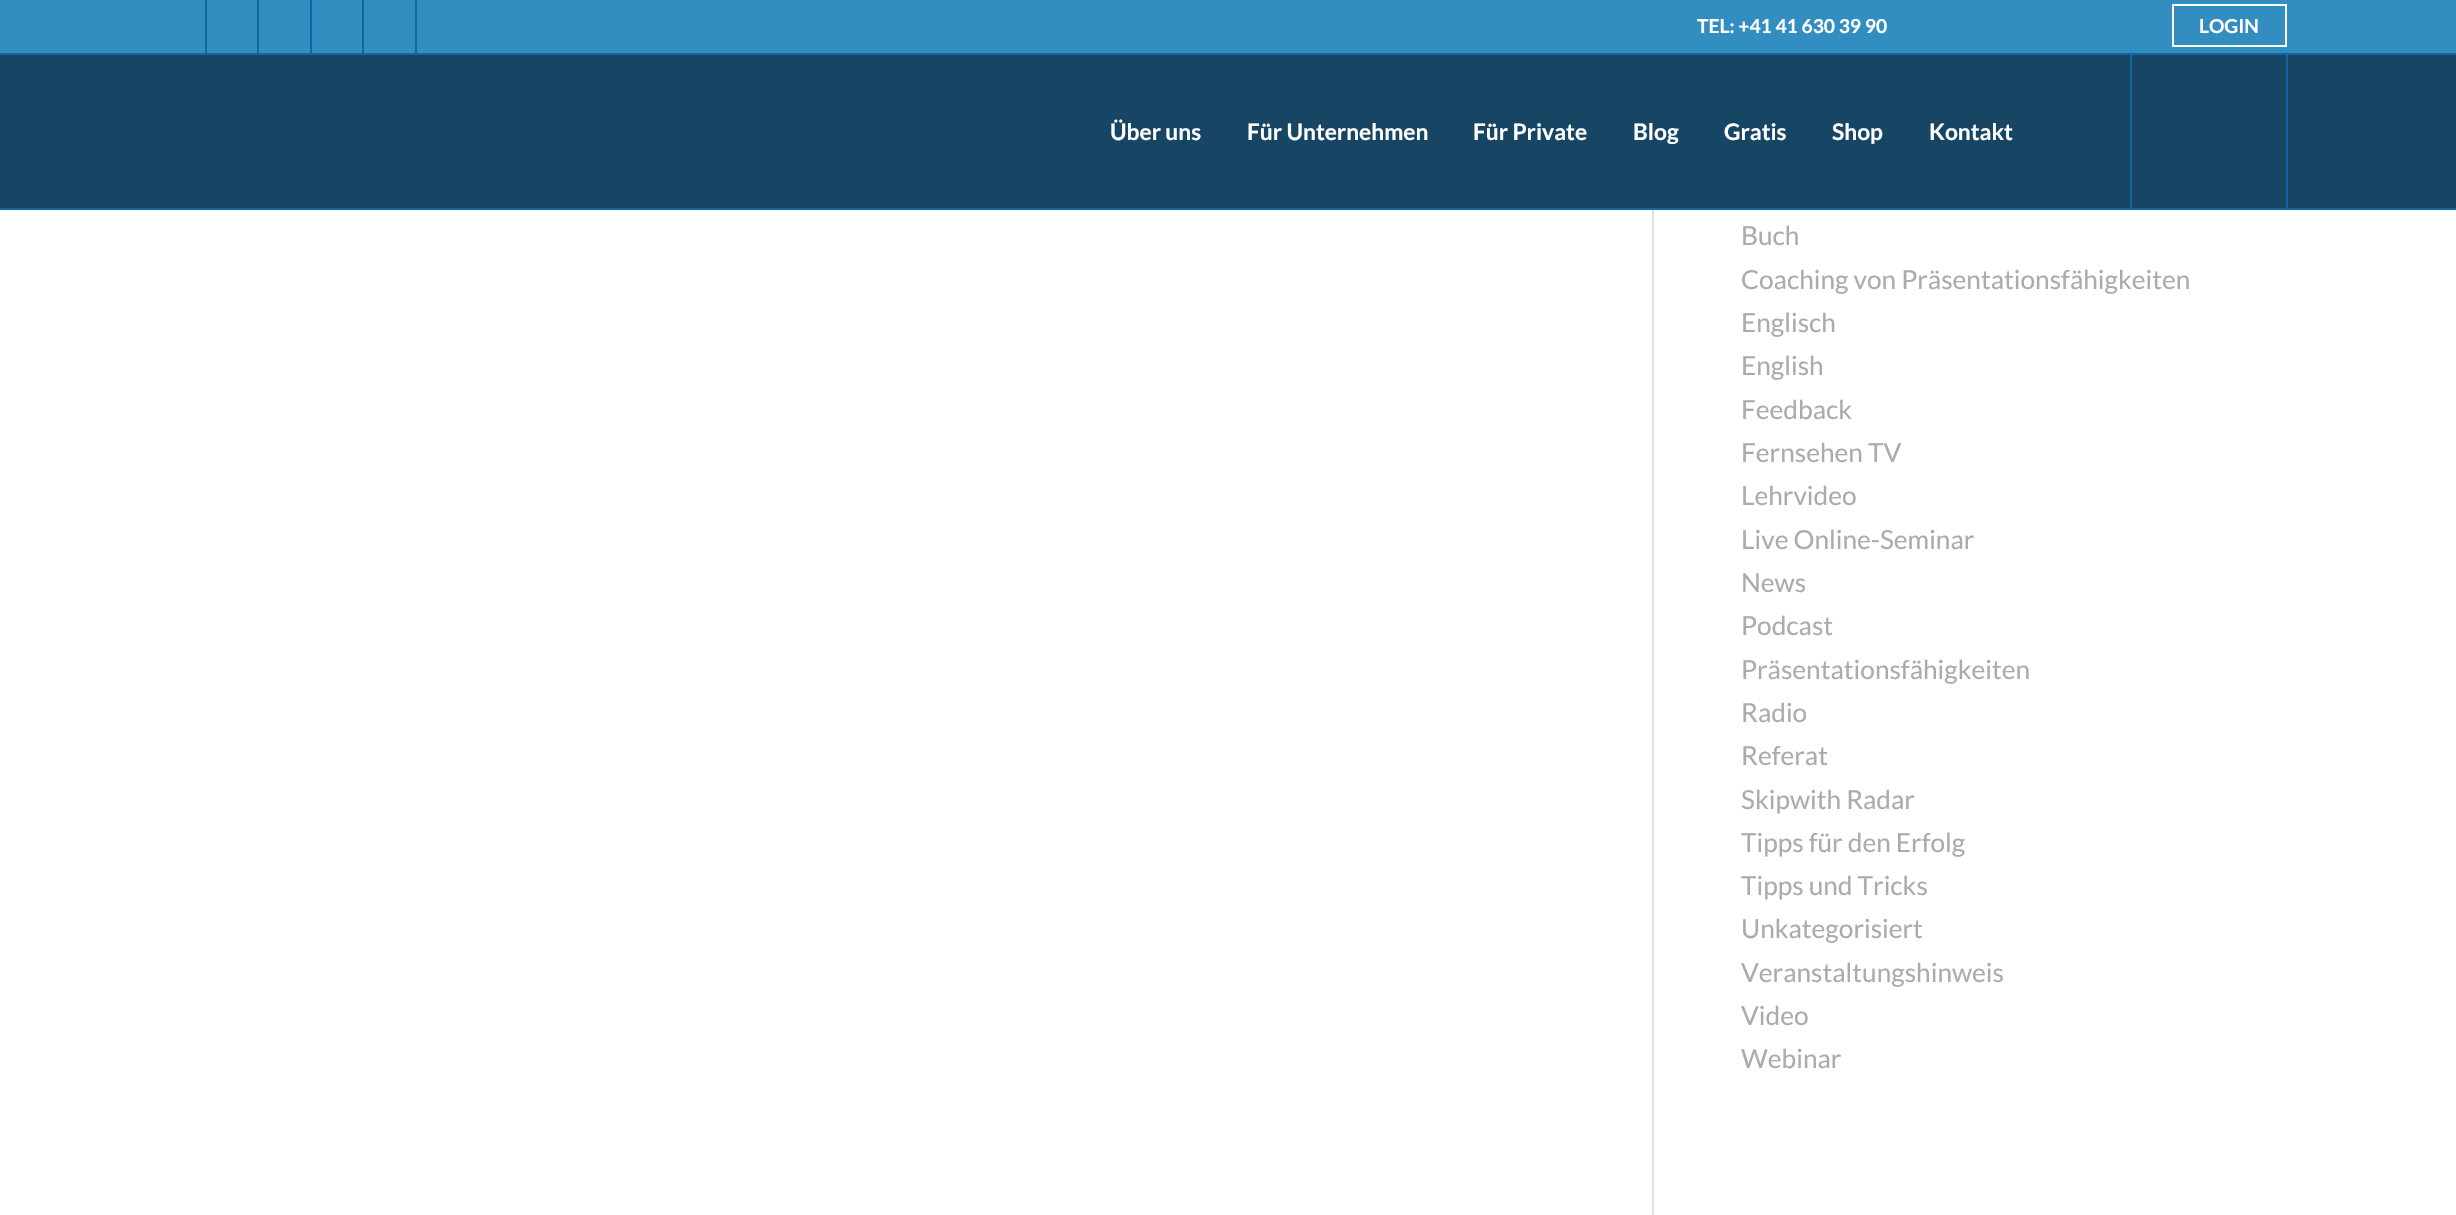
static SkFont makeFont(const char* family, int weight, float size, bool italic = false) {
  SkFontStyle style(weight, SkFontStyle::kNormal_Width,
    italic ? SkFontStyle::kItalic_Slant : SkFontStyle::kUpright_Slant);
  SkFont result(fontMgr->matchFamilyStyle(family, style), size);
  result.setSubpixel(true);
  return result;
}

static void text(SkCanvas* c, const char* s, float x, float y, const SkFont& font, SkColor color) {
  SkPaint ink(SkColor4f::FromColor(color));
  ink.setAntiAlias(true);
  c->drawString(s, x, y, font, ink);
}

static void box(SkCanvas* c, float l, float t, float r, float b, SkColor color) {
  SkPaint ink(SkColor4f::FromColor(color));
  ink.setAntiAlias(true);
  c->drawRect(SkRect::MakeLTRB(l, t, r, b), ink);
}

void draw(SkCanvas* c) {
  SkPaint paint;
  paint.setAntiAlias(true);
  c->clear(0xffffffff);
  box(c, 0, 0, 2456, 53, 0xff328dc1);
  box(c, 1652, 208, 1654, 210, 0xff164464);
  box(c, 0, 208, 2456, 210, 0xff1068a3);
  box(c, 0, 55, 2456, 208, 0xff174665);
  box(c, 2286, 54, 2288, 210, 0xff1068a3);
  box(c, 2130, 54, 2132, 210, 0xff1068a3);
  box(c, 0, 53, 2456, 55, 0xff1068a3);
  box(c, 205, 0, 207, 53, 0xff1068a3);
  box(c, 257, 0, 259, 53, 0xff1068a3);
  box(c, 310, 0, 312, 53, 0xff1068a3);
  box(c, 362, 0, 364, 53, 0xff1068a3);
  box(c, 415, 0, 417, 53, 0xff1068a3);
  SkFont face1 = makeFont("Lato", 700, 19.25f);
  text(c, "TEL: +41 41 630 39 90", 1697, 33, face1, 0xffffffff);
  paint.setStyle(SkPaint::kStroke_Style);
  paint.setStrokeWidth(2);
  paint.setColor(0xffffffff);
  c->drawRect(SkRect::MakeLTRB(2173, 5, 2286, 46), paint);
  text(c, "LOGIN", 2199, 33, face1, 0xffffffff);
  SkFont face2 = makeFont("Lato", 700, 22.75f);
  text(c, "Über uns", 1110, 140, face2, 0xffffffff);
  text(c, "Für Unternehmen", 1247, 140, face2, 0xffffffff);
  text(c, "Für Private", 1473, 140, face2, 0xffffffff);
  text(c, "Blog", 1633, 140, face2, 0xffffffff);
  text(c, "Gratis", 1724, 140, face2, 0xffffffff);
  text(c, "Shop", 1832, 140, face2, 0xffffffff);
  text(c, "Kontakt", 1929, 140, face2, 0xffffffff);
  box(c, 1652, 210, 1654, 1215, 0xffe1e1e1);
  SkFont face3 = makeFont("Lato", 400, 26.25f);
  text(c, "Buch", 1741, 245, face3, 0xffababab);
  text(c, "Coaching von Präsentationsfähigkeiten", 1741, 289, face3, 0xffababab);
  text(c, "Englisch", 1741, 332, face3, 0xffababab);
  text(c, "English", 1741, 375, face3, 0xffababab);
  text(c, "Feedback", 1741, 419, face3, 0xffababab);
  text(c, "Fernsehen TV", 1741, 462, face3, 0xffababab);
  text(c, "Lehrvideo", 1741, 505, face3, 0xffababab);
  text(c, "Live Online-Seminar", 1741, 549, face3, 0xffababab);
  text(c, "News", 1741, 592, face3, 0xffababab);
  text(c, "Podcast", 1741, 635, face3, 0xffababab);
  text(c, "Präsentationsfähigkeiten", 1741, 679, face3, 0xffababab);
  text(c, "Radio", 1741, 722, face3, 0xffababab);
  text(c, "Referat", 1741, 765, face3, 0xffababab);
  text(c, "Skipwith Radar", 1741, 809, face3, 0xffababab);
  text(c, "Tipps für den Erfolg", 1741, 852, face3, 0xffababab);
  text(c, "Tipps und Tricks", 1741, 895, face3, 0xffababab);
  text(c, "Unkategorisiert", 1741, 938, face3, 0xffababab);
  text(c, "Veranstaltungshinweis", 1741, 982, face3, 0xffababab);
  text(c, "Video", 1741, 1025, face3, 0xffababab);
  text(c, "Webinar", 1741, 1068, face3, 0xffababab);
}
